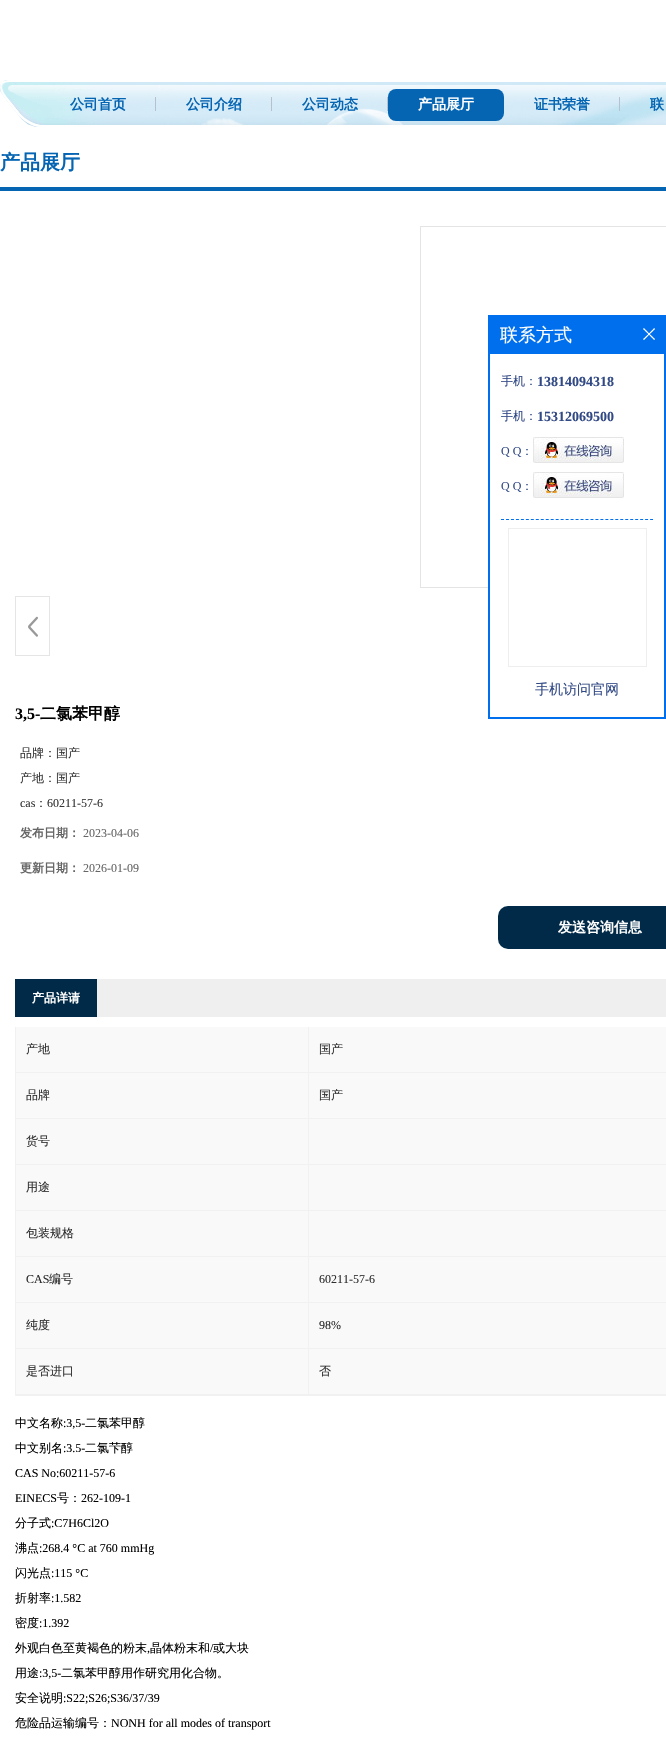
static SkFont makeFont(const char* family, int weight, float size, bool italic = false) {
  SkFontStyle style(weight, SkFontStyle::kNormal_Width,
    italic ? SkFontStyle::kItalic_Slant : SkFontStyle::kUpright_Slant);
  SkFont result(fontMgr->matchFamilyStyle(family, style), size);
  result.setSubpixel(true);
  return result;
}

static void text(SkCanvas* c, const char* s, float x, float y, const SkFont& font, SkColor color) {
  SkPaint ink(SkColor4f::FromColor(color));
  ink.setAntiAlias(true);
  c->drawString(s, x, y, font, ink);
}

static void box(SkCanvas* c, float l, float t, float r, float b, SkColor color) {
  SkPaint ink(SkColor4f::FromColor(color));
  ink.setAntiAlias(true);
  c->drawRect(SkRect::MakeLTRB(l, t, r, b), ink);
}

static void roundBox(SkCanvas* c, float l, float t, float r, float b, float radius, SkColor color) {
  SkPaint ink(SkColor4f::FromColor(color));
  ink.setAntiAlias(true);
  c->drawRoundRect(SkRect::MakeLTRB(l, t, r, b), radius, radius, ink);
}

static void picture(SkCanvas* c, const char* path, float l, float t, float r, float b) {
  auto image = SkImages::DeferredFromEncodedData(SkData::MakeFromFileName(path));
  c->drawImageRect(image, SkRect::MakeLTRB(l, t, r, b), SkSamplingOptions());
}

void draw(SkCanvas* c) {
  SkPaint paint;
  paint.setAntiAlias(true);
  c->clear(0xffffffff);
  picture(c, "img_01.png", 0, 80, 666, 127);
  picture(c, "img_02.png", 155, 97, 156, 111);
  SkFont face1 = makeFont("WenQuanYi Zen Hei", 700, 14);
  text(c, "公司首页", 70, 109, face1, 0xff0565b2);
  picture(c, "img_02.png", 271, 97, 272, 111);
  text(c, "公司介绍", 186, 109, face1, 0xff0565b2);
  picture(c, "img_02.png", 387, 97, 388, 111);
  text(c, "公司动态", 302, 109, face1, 0xff0565b2);
  roundBox(c, 388, 89, 504, 121, 8, 0xff0565b2);
  text(c, "产品展厅", 418, 109, face1, 0xffffffff);
  picture(c, "img_02.png", 619, 97, 620, 111);
  text(c, "证书荣誉", 534, 109, face1, 0xff0565b2);
  text(c, "联", 650, 109, face1, 0xff0565b2);
  box(c, 0, 187, 666, 191, 0xff0565b2);
  SkFont face2 = makeFont("WenQuanYi Zen Hei", 700, 20);
  text(c, "产品展厅", 0, 169, face2, 0xff0565b2);
  paint.setStyle(SkPaint::kStroke_Style);
  paint.setStrokeWidth(1);
  paint.setColor(0xffe4e4e4);
  c->drawRect(SkRect::MakeLTRB(420.5f, 226.5f, 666.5f, 587.5f), paint);
  picture(c, "img_03.png", 28, 616, 38, 637);
  paint.setColor(0xffe5e5e5);
  c->drawRect(SkRect::MakeLTRB(15.5f, 596.5f, 49.5f, 655.5f), paint);
  SkFont face3 = makeFont("Liberation Serif", 700, 16);
  text(c, "3,5-", 15, 719, face3, 0xff000000);
  SkFont face4 = makeFont("WenQuanYi Zen Hei", 700, 16);
  text(c, "二氯苯甲醇", 40, 719, face4, 0xff000000);
  SkFont face5 = makeFont("WenQuanYi Zen Hei", 500, 12);
  text(c, "品牌：国产", 20, 757, face5, 0xff333333);
  text(c, "产地：国产", 20, 782, face5, 0xff333333);
  SkFont face6 = makeFont("Liberation Serif", 400, 12);
  text(c, "cas", 20, 807, face6, 0xff333333);
  text(c, "：", 35, 807, face5, 0xff333333);
  text(c, "60211-57-6", 47, 807, face6, 0xff333333);
  SkFont face7 = makeFont("WenQuanYi Zen Hei", 700, 12);
  text(c, "发布日期：", 20, 837, face7, 0xff666666);
  text(c, "2023-04-06", 83, 837, face6, 0xff666666);
  text(c, "更新日期：", 20, 872, face7, 0xff666666);
  text(c, "2026-01-09", 83, 872, face6, 0xff666666);
  roundBox(c, 498, 906, 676, 949, 10, 0xff002a48);
  text(c, "发送咨询信息", 558, 932, face1, 0xffffffff);
  box(c, 97, 979, 666, 1017, 0xffefefef);
  box(c, 15, 979, 97, 1017, 0xff002a48);
  text(c, "产品详请", 32, 1002, face7, 0xffffffff);
  box(c, 15, 1395, 666, 1396, 0xfff1f1f1);
  box(c, 15, 1027, 16, 1396, 0xfff1f1f1);
  box(c, 16, 1027, 666, 1394, 0xfff9f9f9);
  box(c, 308, 1027, 309, 1395, 0xfff1f1f1);
  box(c, 16, 1072, 666, 1073, 0xfff1f1f1);
  text(c, "产地", 26, 1053, face5, 0xff2d2d2d);
  text(c, "国产", 319, 1053, face5, 0xff2d2d2d);
  box(c, 16, 1118, 666, 1119, 0xfff1f1f1);
  text(c, "品牌", 26, 1099, face5, 0xff2d2d2d);
  text(c, "国产", 319, 1099, face5, 0xff2d2d2d);
  box(c, 16, 1164, 666, 1165, 0xfff1f1f1);
  text(c, "货号", 26, 1145, face5, 0xff2d2d2d);
  box(c, 16, 1210, 666, 1211, 0xfff1f1f1);
  text(c, "用途", 26, 1191, face5, 0xff2d2d2d);
  box(c, 16, 1256, 666, 1257, 0xfff1f1f1);
  text(c, "包装规格", 26, 1237, face5, 0xff2d2d2d);
  box(c, 16, 1302, 666, 1303, 0xfff1f1f1);
  text(c, "CAS", 26, 1283, face6, 0xff2d2d2d);
  text(c, "编号", 49, 1283, face5, 0xff2d2d2d);
  text(c, "60211-57-6", 319, 1283, face6, 0xff2d2d2d);
  box(c, 16, 1348, 666, 1349, 0xfff1f1f1);
  text(c, "纯度", 26, 1329, face5, 0xff2d2d2d);
  text(c, "98%", 319, 1329, face6, 0xff2d2d2d);
  box(c, 16, 1394, 666, 1395, 0xfff1f1f1);
  text(c, "是否进口", 26, 1375, face5, 0xff2d2d2d);
  text(c, "否", 319, 1375, face5, 0xff2d2d2d);
  text(c, "中文名称", 15, 1427, face5, 0xff000000);
  text(c, ":3,5-", 63, 1427, face6, 0xff000000);
  text(c, "二氯苯甲醇", 85, 1427, face5, 0xff000000);
  text(c, "中文别名", 15, 1452, face5, 0xff000000);
  text(c, ":3.5-", 63, 1452, face6, 0xff000000);
  text(c, "二氯芐醇", 85, 1452, face5, 0xff000000);
  text(c, "CAS No:60211-57-6", 15, 1477, face6, 0xff000000);
  text(c, "EINECS", 15, 1502, face6, 0xff000000);
  text(c, "号：", 57, 1502, face5, 0xff000000);
  text(c, "262-109-1", 81, 1502, face6, 0xff000000);
  text(c, "分子式", 15, 1527, face5, 0xff000000);
  text(c, ":C7H6Cl2O", 51, 1527, face6, 0xff000000);
  text(c, "沸点", 15, 1552, face5, 0xff000000);
  text(c, ":268.4 °C at 760 mmHg", 39, 1552, face6, 0xff000000);
  text(c, "闪光点", 15, 1577, face5, 0xff000000);
  text(c, ":115 °C", 51, 1577, face6, 0xff000000);
  text(c, "折射率", 15, 1602, face5, 0xff000000);
  text(c, ":1.582", 51, 1602, face6, 0xff000000);
  text(c, "密度", 15, 1627, face5, 0xff000000);
  text(c, ":1.392", 39, 1627, face6, 0xff000000);
  text(c, "外观白色至黄褐色的粉末", 15, 1652, face5, 0xff000000);
  text(c, ",", 147, 1652, face6, 0xff000000);
  text(c, "晶体粉末和", 150, 1652, face5, 0xff000000);
  text(c, "/", 210, 1652, face6, 0xff000000);
  text(c, "或大块", 213, 1652, face5, 0xff000000);
  text(c, "用途", 15, 1677, face5, 0xff000000);
  text(c, ":3,5-", 39, 1677, face6, 0xff000000);
  text(c, "二氯苯甲醇用作研究用化合物。", 61, 1677, face5, 0xff000000);
  text(c, "安全说明", 15, 1702, face5, 0xff000000);
  text(c, ":S22;S26;S36/37/39", 63, 1702, face6, 0xff000000);
  text(c, "危险品运输编号：", 15, 1727, face5, 0xff000000);
  text(c, "NONH for all modes of transport", 111, 1727, face6, 0xff000000);
  box(c, 488, 315, 666, 719, 0xff006fed);
  SkFont face8 = makeFont("WenQuanYi Zen Hei", 500, 18);
  text(c, "联系方式", 500, 341, face8, 0xffffffff);
  picture(c, "img_04.png", 643, 328, 655, 340);
  box(c, 490, 354, 664, 717, 0xffffffff);
  paint.setColor(0xff006fed);
  paint.setPathEffect(SkDashPathEffect::Make({{3, 1.97f}}, 0));
  c->drawPath(SkPathBuilder().moveTo(501, 519.5f).lineTo(653, 519.5f).detach(), paint);
  paint.setPathEffect(nullptr);
  text(c, "手机：", 501, 385, face5, 0xff314985);
  SkFont face9 = makeFont("Liberation Serif", 700, 14);
  text(c, "13814094318", 537, 386, face9, 0xff314985);
  text(c, "手机：", 501, 420, face5, 0xff314985);
  text(c, "15312069500", 537, 421, face9, 0xff314985);
  text(c, "Q Q", 501, 455, face6, 0xff314985);
  text(c, "：", 521, 455, face5, 0xff314985);
  picture(c, "img_05.png", 533, 437, 624, 463);
  text(c, "Q Q", 501, 490, face6, 0xff314985);
  text(c, "：", 521, 490, face5, 0xff314985);
  picture(c, "img_05.png", 533, 472, 624, 498);
  paint.setColor(0xffeeeeee);
  c->drawRect(SkRect::MakeLTRB(508.5f, 528.5f, 646.5f, 666.5f), paint);
  SkFont face10 = makeFont("WenQuanYi Zen Hei", 500, 14);
  text(c, "手机访问官网", 535, 694, face10, 0xff314985);
}
